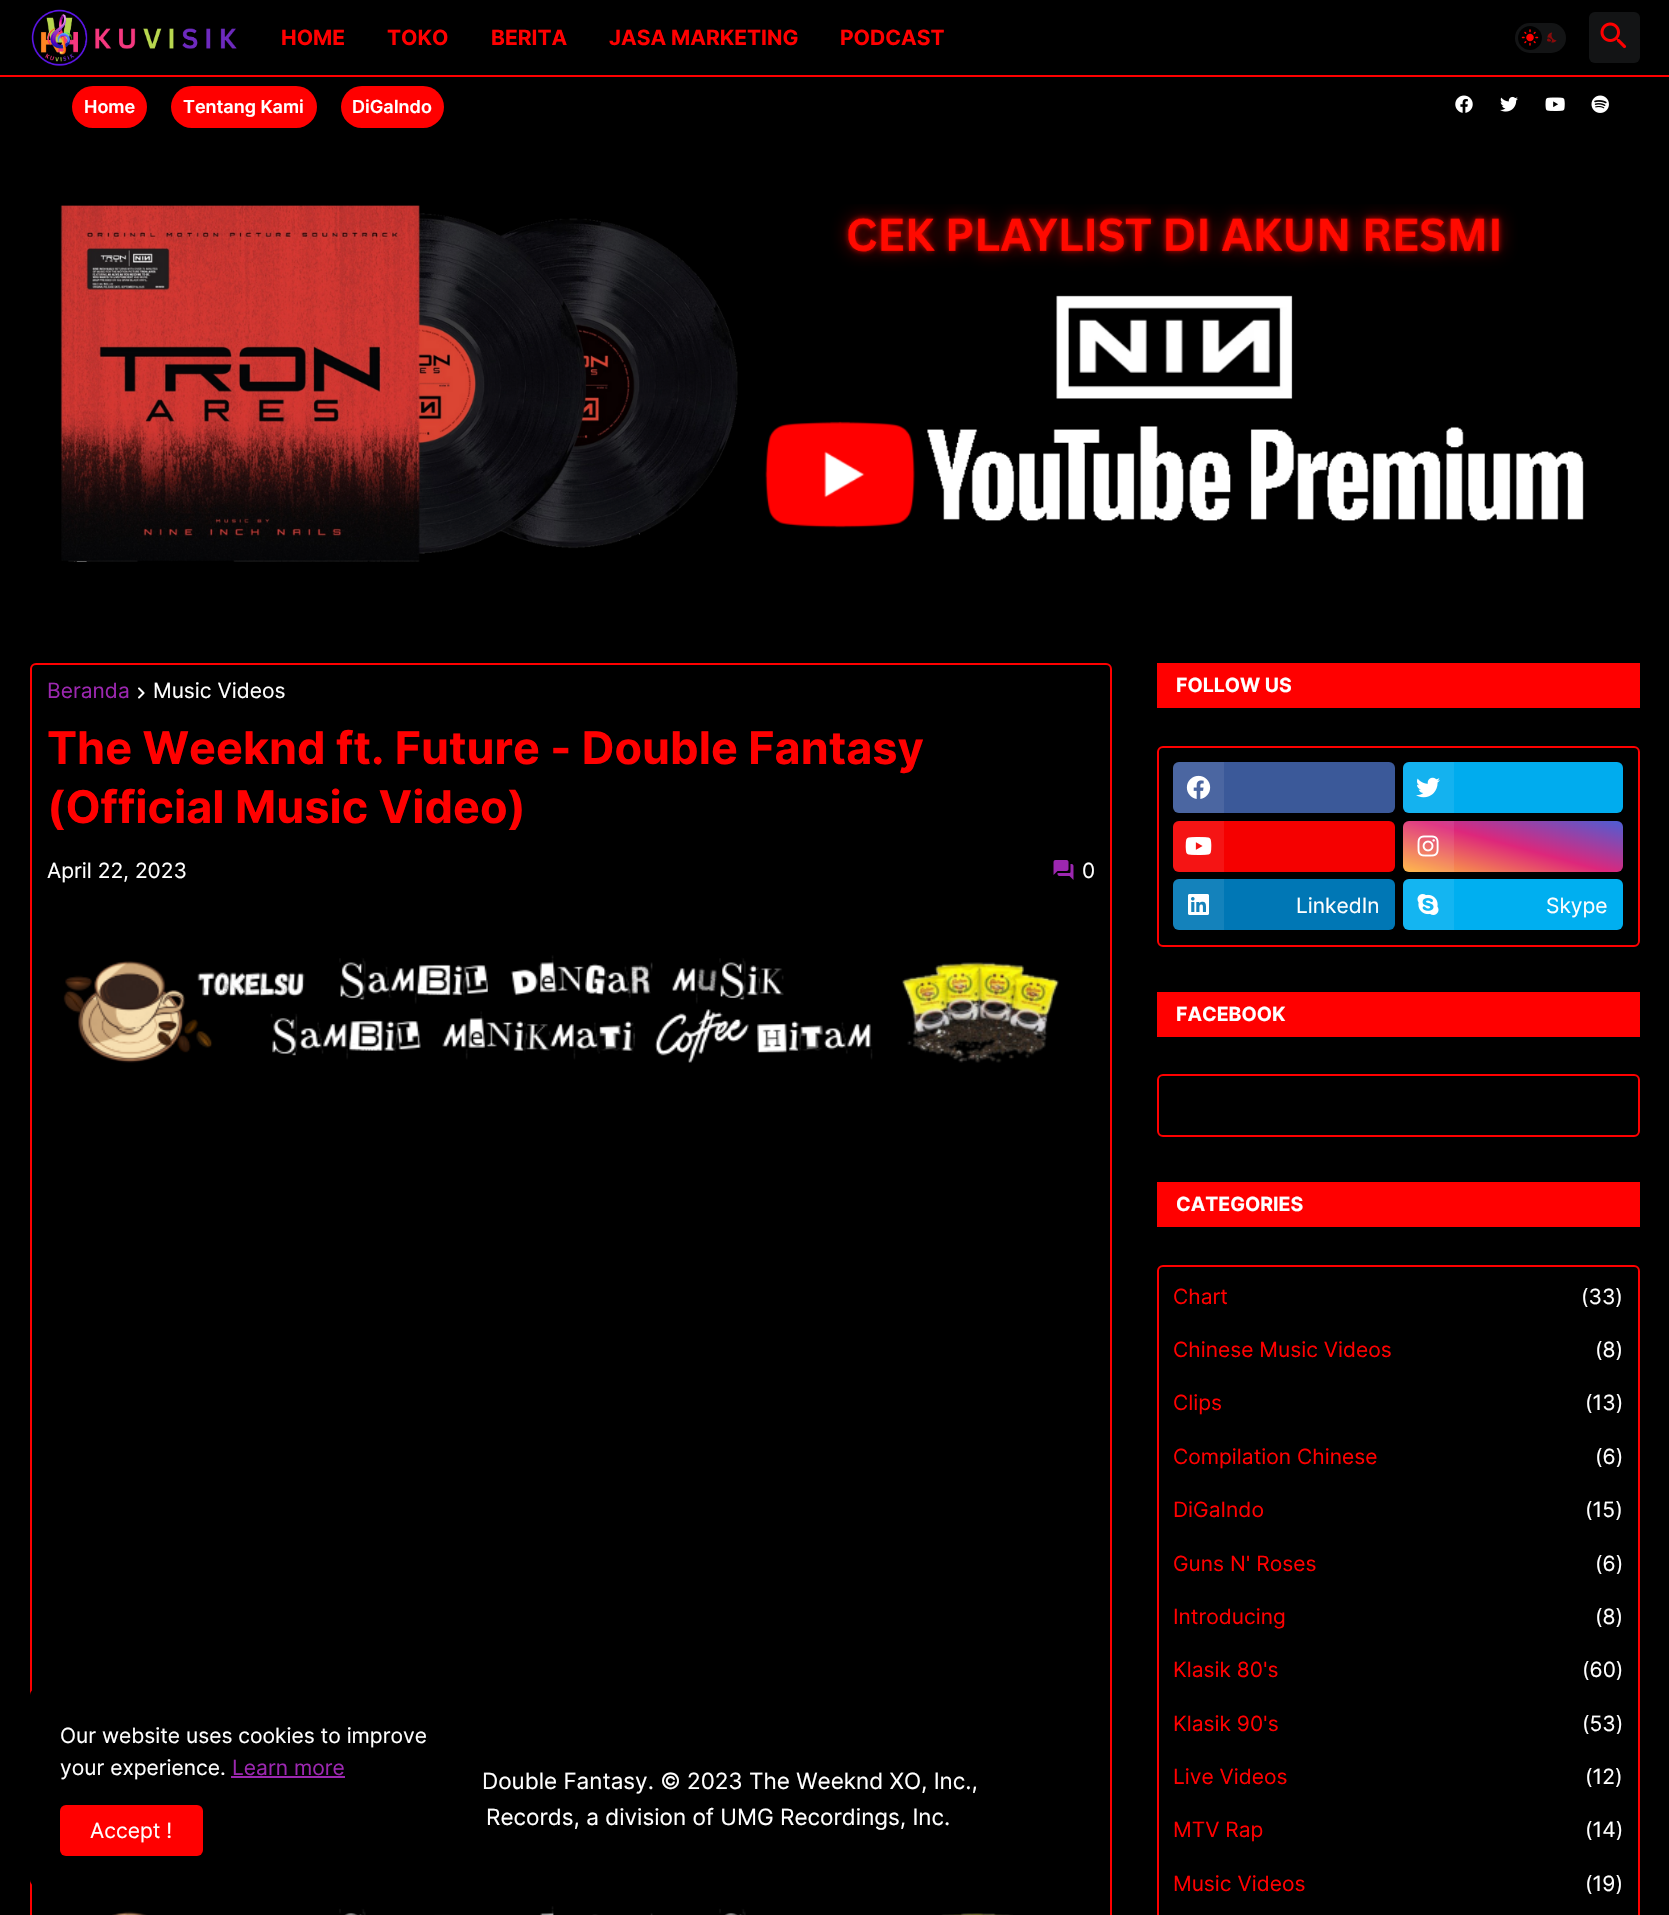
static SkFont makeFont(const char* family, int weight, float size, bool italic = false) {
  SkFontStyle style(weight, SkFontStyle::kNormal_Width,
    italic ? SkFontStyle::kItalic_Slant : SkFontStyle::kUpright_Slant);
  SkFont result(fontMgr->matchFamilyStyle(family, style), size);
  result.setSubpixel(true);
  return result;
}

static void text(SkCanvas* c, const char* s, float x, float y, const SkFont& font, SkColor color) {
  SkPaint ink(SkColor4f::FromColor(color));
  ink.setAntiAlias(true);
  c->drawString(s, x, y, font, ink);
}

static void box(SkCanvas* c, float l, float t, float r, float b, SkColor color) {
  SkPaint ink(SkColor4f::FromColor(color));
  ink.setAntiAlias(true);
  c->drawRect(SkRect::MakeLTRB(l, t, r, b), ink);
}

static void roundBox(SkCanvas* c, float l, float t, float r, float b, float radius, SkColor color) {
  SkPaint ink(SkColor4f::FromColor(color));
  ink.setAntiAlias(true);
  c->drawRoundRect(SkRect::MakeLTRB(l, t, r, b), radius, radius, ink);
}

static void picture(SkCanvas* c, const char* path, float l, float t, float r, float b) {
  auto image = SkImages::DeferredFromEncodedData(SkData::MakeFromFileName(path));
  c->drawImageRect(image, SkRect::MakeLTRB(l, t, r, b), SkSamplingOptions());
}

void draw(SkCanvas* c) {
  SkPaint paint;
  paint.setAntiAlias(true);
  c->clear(0xff000000);
  picture(c, "img_01.png", 31, 9, 237, 66);
  SkFont face1 = makeFont("Inter", 700, 21);
  text(c, "HOME", 281, 45, face1, 0xffff0000);
  text(c, "TOKO", 387, 45, face1, 0xffff0000);
  text(c, "BERITA", 491, 45, face1, 0xffff0000);
  text(c, "JASA MARKETING", 609, 45, face1, 0xffff0000);
  text(c, "PODCAST", 840, 45, face1, 0xffff0000);
  roundBox(c, 1515, 23, 1566, 53, 15, 0xff131415);
  paint.setColor(0xff000000);
  c->drawCircle(1530, 38, 12, paint);
  picture(c, "img_02.png", 1521, 29, 1539, 46);
  picture(c, "img_03.png", 1547, 32, 1557, 43);
  roundBox(c, 1589, 12, 1640, 63, 6, 0xff131415);
  picture(c, "img_04.png", 1600, 22, 1627, 49);
  box(c, 0, 75, 1669, 77, 0xffff0000);
  roundBox(c, 72, 86, 147, 128, 21, 0xffff0000);
  SkFont face2 = makeFont("Inter", 600, 18);
  text(c, "Home", 84, 113, face2, 0xffffffff);
  roundBox(c, 171, 86, 317, 128, 21, 0xffff0000);
  text(c, "Tentang Kami", 183, 113, face2, 0xffffffff);
  roundBox(c, 341, 86, 444, 128, 21, 0xffff0000);
  text(c, "DiGaIndo", 352, 113, face2, 0xffffffff);
  picture(c, "img_05.png", 1455, 95, 1473, 113);
  picture(c, "img_06.png", 1500, 96, 1518, 112);
  picture(c, "img_07.png", 1545, 97, 1565, 111);
  picture(c, "img_08.png", 1591, 95, 1609, 113);
  picture(c, "img_09.png", 60, 204, 1584, 562);
  paint.setStyle(SkPaint::kStroke_Style);
  paint.setStrokeWidth(2);
  paint.setColor(0xffff0000);
  c->drawRoundRect(SkRect::MakeLTRB(31, 664, 1111, 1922), 5, 5, paint);
  SkFont face3 = makeFont("Inter", 400, 21);
  text(c, "Beranda", 47, 698, face3, 0xff9c27b0);
  picture(c, "img_10.png", 138, 687, 145, 699);
  text(c, "Music Videos", 153, 698, face3, 0xffffffff);
  SkFont face4 = makeFont("Inter", 700, 45);
  text(c, "The Weeknd ft. Future - Double Fantasy", 47, 764, face4, 0xffff0000);
  text(c, "(Official Music Video)", 47, 823, face4, 0xffff0000);
  text(c, "April 22, 2023", 47, 878, face3, 0xffffffff);
  picture(c, "img_11.png", 1053, 860, 1074, 880);
  text(c, "0", 1082, 878, face3, 0xffffffff);
  picture(c, "img_12.png", 63, 955, 1059, 1063);
  SkFont face5 = makeFont("Inter", 400, 22.5f);
  text(c, "Double Fantasy. © 2023 The Weeknd XO, Inc.,", 482, 1789, face5, 0xffffffff);
  text(c, "Records, a division of UMG Recordings, Inc.", 486, 1825, face5, 0xffffffff);
  picture(c, "img_13.png", 112, 1906, 1013, 1915);
  box(c, 1157, 663, 1640, 708, 0xffff0000);
  SkFont face6 = makeFont("Inter", 700, 19.5f);
  text(c, "FOLLOW US", 1176, 692, face6, 0xffffffff);
  c->drawRoundRect(SkRect::MakeLTRB(1158, 747, 1639, 946), 5, 5, paint);
  roundBox(c, 1173, 762, 1395, 813, 6, 0xff3b5999);
  paint.setStyle(SkPaint::kFill_Style);
  paint.setColor(0x14ffffff);
  c->drawPath(SkPathBuilder().moveTo(1179, 762).lineTo(1224, 762).lineTo(1224, 813).lineTo(1179, 813).cubicTo(1175.5f, 813, 1173, 810.5f, 1173, 807).lineTo(1173, 768).cubicTo(1173, 764.5f, 1175.5f, 762, 1179, 762).close().detach(), paint);
  picture(c, "img_14.png", 1186, 775, 1211, 799);
  roundBox(c, 1403, 762, 1623, 813, 6, 0xff00acee);
  c->drawPath(SkPathBuilder().moveTo(1409, 762).lineTo(1454, 762).lineTo(1454, 813).lineTo(1409, 813).cubicTo(1405.5f, 813, 1403, 810.5f, 1403, 807).lineTo(1403, 768).cubicTo(1403, 764.5f, 1405.5f, 762, 1409, 762).close().detach(), paint);
  picture(c, "img_15.png", 1416, 777, 1440, 798);
  roundBox(c, 1173, 821, 1395, 872, 6, 0xfff50000);
  c->drawPath(SkPathBuilder().moveTo(1179, 821).lineTo(1224, 821).lineTo(1224, 872).lineTo(1179, 872).cubicTo(1175.5f, 872, 1173, 869.5f, 1173, 866).lineTo(1173, 827).cubicTo(1173, 823.5f, 1175.5f, 821, 1179, 821).close().detach(), paint);
  picture(c, "img_16.png", 1185, 837, 1212, 855);
  {
    const SkColor colors[] = {0xffffb13d, 0xffdd277b, 0xff4d5ed4};
    const float stops[] = {0, 0.5f, 1};
    const SkPoint ends[] = {{1499, 897}, {1527, 795}};
    paint.setShader(SkGradientShader::MakeLinear(ends, colors, stops, 3, SkTileMode::kClamp));
    paint.setAlpha(255);
  }
  c->drawRoundRect(SkRect::MakeLTRB(1403, 821, 1623, 872), 6, 6, paint);
  paint.setShader(nullptr);
  paint.setColor(0x14ffffff);
  c->drawPath(SkPathBuilder().moveTo(1409, 821).lineTo(1454, 821).lineTo(1454, 872).lineTo(1409, 872).cubicTo(1405.5f, 872, 1403, 869.5f, 1403, 866).lineTo(1403, 827).cubicTo(1403, 823.5f, 1405.5f, 821, 1409, 821).close().detach(), paint);
  picture(c, "img_17.png", 1417, 835, 1439, 857);
  roundBox(c, 1173, 879, 1395, 930, 6, 0xff0077b5);
  c->drawPath(SkPathBuilder().moveTo(1179, 879).lineTo(1224, 879).lineTo(1224, 930).lineTo(1179, 930).cubicTo(1175.5f, 930, 1173, 927.5f, 1173, 924).lineTo(1173, 885).cubicTo(1173, 881.5f, 1175.5f, 879, 1179, 879).close().detach(), paint);
  picture(c, "img_18.png", 1188, 894, 1209, 915);
  text(c, "LinkedIn", 1296, 913, face3, 0xffffffff);
  roundBox(c, 1403, 879, 1623, 930, 6, 0xff00aff0);
  c->drawPath(SkPathBuilder().moveTo(1409, 879).lineTo(1454, 879).lineTo(1454, 930).lineTo(1409, 930).cubicTo(1405.5f, 930, 1403, 927.5f, 1403, 924).lineTo(1403, 885).cubicTo(1403, 881.5f, 1405.5f, 879, 1409, 879).close().detach(), paint);
  picture(c, "img_19.png", 1417, 894, 1439, 915);
  text(c, "Skype", 1546, 913, face3, 0xffffffff);
  box(c, 1157, 992, 1640, 1037, 0xffff0000);
  text(c, "FACEBOOK", 1176, 1021, face6, 0xffffffff);
  paint.setStyle(SkPaint::kStroke_Style);
  paint.setColor(0xffff0000);
  c->drawRoundRect(SkRect::MakeLTRB(1158, 1075, 1639, 1136), 5, 5, paint);
  box(c, 1157, 1182, 1640, 1227, 0xffff0000);
  text(c, "CATEGORIES", 1176, 1211, face6, 0xffffffff);
  c->drawRoundRect(SkRect::MakeLTRB(1158, 1266, 1639, 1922), 5, 5, paint);
  text(c, "Chart", 1173, 1304, face3, 0xffff0000);
  text(c, "(33)", 1581, 1304, face3, 0xffffffff);
  text(c, "Chinese Music Videos", 1173, 1357, face3, 0xffff0000);
  text(c, "(8)", 1595, 1357, face3, 0xffffffff);
  text(c, "Clips", 1173, 1410, face3, 0xffff0000);
  text(c, "(13)", 1585, 1410, face3, 0xffffffff);
  text(c, "Compilation Chinese", 1173, 1464, face3, 0xffff0000);
  text(c, "(6)", 1595, 1464, face3, 0xffffffff);
  text(c, "DiGaIndo", 1173, 1517, face3, 0xffff0000);
  text(c, "(15)", 1585, 1517, face3, 0xffffffff);
  text(c, "Guns N' Roses", 1173, 1571, face3, 0xffff0000);
  text(c, "(6)", 1595, 1571, face3, 0xffffffff);
  text(c, "Introducing", 1173, 1624, face3, 0xffff0000);
  text(c, "(8)", 1595, 1624, face3, 0xffffffff);
  text(c, "Klasik 80's", 1173, 1677, face3, 0xffff0000);
  text(c, "(60)", 1582, 1677, face3, 0xffffffff);
  text(c, "Klasik 90's", 1173, 1731, face3, 0xffff0000);
  text(c, "(53)", 1582, 1731, face3, 0xffffffff);
  text(c, "Live Videos", 1173, 1784, face3, 0xffff0000);
  text(c, "(12)", 1585, 1784, face3, 0xffffffff);
  text(c, "MTV Rap", 1173, 1837, face3, 0xffff0000);
  text(c, "(14)", 1585, 1837, face3, 0xffffffff);
  text(c, "Music Videos", 1173, 1891, face3, 0xffff0000);
  text(c, "(19)", 1585, 1891, face3, 0xffffffff);
  paint.setStyle(SkPaint::kFill_Style);
  paint.setColor(0x1a000000);
  paint.setMaskFilter(SkMaskFilter::MakeBlur(kNormal_SkBlurStyle, 7.5f));
  c->drawRoundRect(SkRect::MakeLTRB(30, 1689, 480, 1886), 6, 6, paint);
  paint.setMaskFilter(nullptr);
  roundBox(c, 30, 1689, 480, 1886, 6, 0xff000000);
  text(c, "Our website uses cookies to improve", 60, 1743, face3, 0xffffffff);
  text(c, "your experience.", 60, 1775, face3, 0xffffffff);
  text(c, "Learn more", 232, 1775, face3, 0xff9c27b0);
  box(c, 231, 1776, 345, 1778, 0xff9c27b0);
  roundBox(c, 60, 1805, 203, 1856, 6, 0xffff0000);
  text(c, "Accept !", 90, 1838, face3, 0xffffffff);
}
